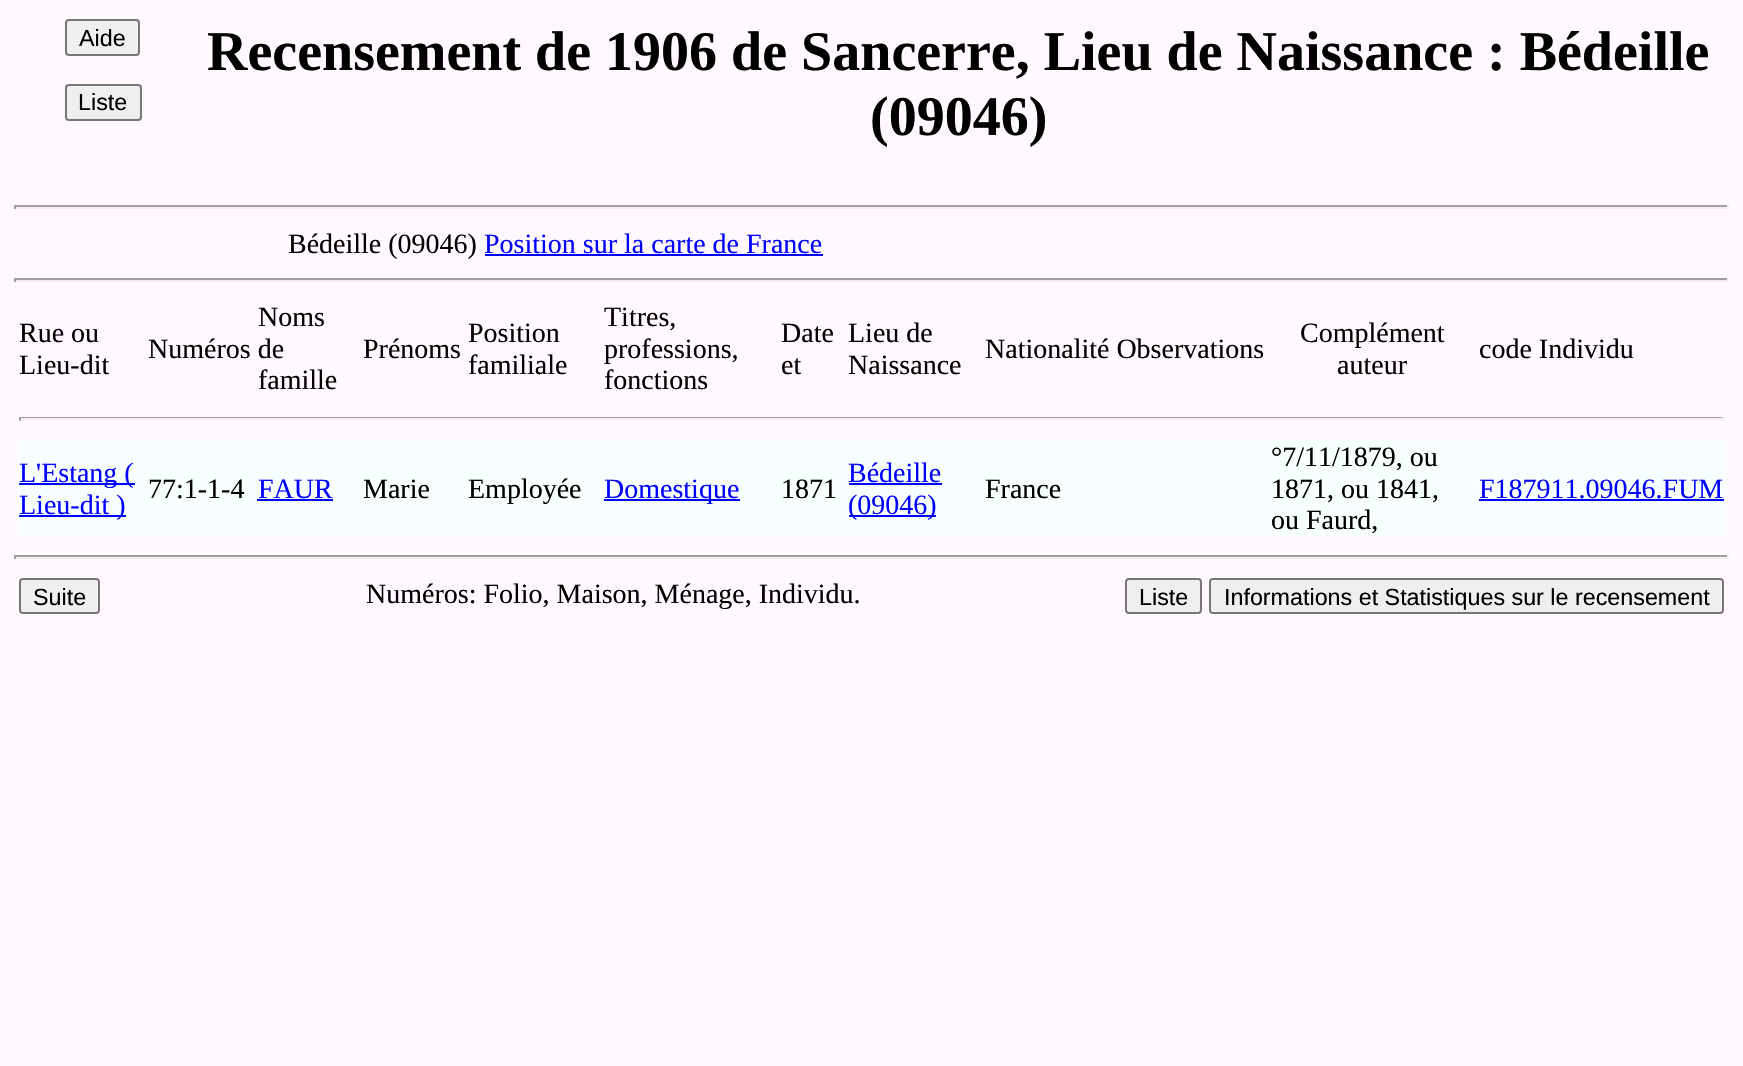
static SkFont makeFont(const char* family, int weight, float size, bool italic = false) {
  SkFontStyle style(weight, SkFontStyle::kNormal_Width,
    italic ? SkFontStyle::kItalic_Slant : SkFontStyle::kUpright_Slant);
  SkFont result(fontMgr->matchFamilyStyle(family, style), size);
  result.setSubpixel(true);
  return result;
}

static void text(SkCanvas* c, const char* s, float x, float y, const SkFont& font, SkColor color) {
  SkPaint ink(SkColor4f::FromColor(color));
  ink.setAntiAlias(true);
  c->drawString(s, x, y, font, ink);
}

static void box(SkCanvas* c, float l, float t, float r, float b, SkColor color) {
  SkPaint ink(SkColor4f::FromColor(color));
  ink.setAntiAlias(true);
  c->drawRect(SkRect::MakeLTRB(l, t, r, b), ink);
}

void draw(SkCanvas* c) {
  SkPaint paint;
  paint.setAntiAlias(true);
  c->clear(0xfffff8ff);
  paint.setColor(0xffefefef);
  c->drawRoundRect(SkRect::MakeLTRB(66, 20, 139, 55), 3, 3, paint);
  paint.setStyle(SkPaint::kStroke_Style);
  paint.setStrokeWidth(2);
  paint.setColor(0xff767676);
  c->drawRoundRect(SkRect::MakeLTRB(66, 20, 139, 55), 3, 3, paint);
  SkFont face1 = makeFont("Liberation Sans", 400, 23.3f);
  text(c, "Aide", 79, 46, face1, 0xff000000);
  paint.setStyle(SkPaint::kFill_Style);
  paint.setColor(0xffefefef);
  c->drawRoundRect(SkRect::MakeLTRB(66, 85, 141, 120), 3, 3, paint);
  paint.setStyle(SkPaint::kStroke_Style);
  paint.setColor(0xff767676);
  c->drawRoundRect(SkRect::MakeLTRB(66, 85, 141, 120), 3, 3, paint);
  text(c, "Liste", 78, 110, face1, 0xff000000);
  SkFont face2 = makeFont("Liberation Serif", 700, 56);
  text(c, "Recensement de 1906 de Sancerre, Lieu de Naissance : Bédeille", 207, 70, face2, 0xff000000);
  text(c, "(09046)", 870, 135, face2, 0xff000000);
  box(c, 14, 205, 1729, 207, 0xff9f9f9f);
  box(c, 1727, 205, 1729, 209, 0xffeeeeee);
  box(c, 14, 207, 1729, 209, 0xffeeeeee);
  box(c, 14, 205, 16, 209, 0xff9f9f9f);
  SkFont face3 = makeFont("Liberation Serif", 400, 28);
  text(c, "Bédeille (09046)", 288, 253, face3, 0xff000000);
  text(c, "Position sur la carte de France", 484, 253, face3, 0xff0000ff);
  box(c, 485, 254, 823, 256, 0xff0000ff);
  box(c, 14, 278, 1729, 280, 0xff9f9f9f);
  box(c, 1727, 278, 1729, 282, 0xffeeeeee);
  box(c, 14, 280, 1729, 282, 0xffeeeeee);
  box(c, 14, 278, 16, 282, 0xff9f9f9f);
  text(c, "Rue ou", 19, 342, face3, 0xff000000);
  text(c, "Lieu-dit", 19, 374, face3, 0xff000000);
  text(c, "Numéros de", 148, 358, face3, 0xff000000);
  text(c, "Noms", 258, 326, face3, 0xff000000);
  text(c, "famille", 258, 389, face3, 0xff000000);
  text(c, "Prénoms", 363, 358, face3, 0xff000000);
  text(c, "Position", 468, 342, face3, 0xff000000);
  text(c, "familiale", 468, 374, face3, 0xff000000);
  text(c, "Titres,", 604, 326, face3, 0xff000000);
  text(c, "professions,", 604, 358, face3, 0xff000000);
  text(c, "fonctions", 604, 389, face3, 0xff000000);
  text(c, "Date", 781, 342, face3, 0xff000000);
  text(c, "et", 781, 374, face3, 0xff000000);
  text(c, "Lieu de", 848, 342, face3, 0xff000000);
  text(c, "Naissance", 848, 374, face3, 0xff000000);
  text(c, "Nationalité Observations", 985, 358, face3, 0xff000000);
  text(c, "Complément", 1300, 342, face3, 0xff000000);
  text(c, "auteur", 1337, 374, face3, 0xff000000);
  text(c, "code Individu", 1479, 358, face3, 0xff000000);
  box(c, 19, 417, 1724, 418, 0xff9f9f9f);
  box(c, 1722, 417, 1724, 421, 0xffeeeeee);
  box(c, 19, 418, 1724, 420, 0xffeeeeee);
  box(c, 19, 417, 21, 421, 0xff9f9f9f);
  box(c, 18, 439, 1726, 537, 0xfff8ffff);
  box(c, 19, 483, 135, 485, 0xff0000ff);
  text(c, "L'Estang (", 19, 482, face3, 0xff0000ff);
  box(c, 19, 515, 126, 517, 0xff0000ff);
  text(c, "Lieu-dit )", 19, 514, face3, 0xff0000ff);
  text(c, "77:1-1-4", 148, 498, face3, 0xff000000);
  text(c, "FAUR", 258, 498, face3, 0xff0000ff);
  box(c, 257, 499, 333, 501, 0xff0000ff);
  text(c, "Marie", 363, 498, face3, 0xff000000);
  text(c, "Employée", 468, 498, face3, 0xff000000);
  box(c, 604, 499, 740, 501, 0xff0000ff);
  text(c, "Domestique", 604, 498, face3, 0xff0000ff);
  text(c, "1871", 781, 498, face3, 0xff000000);
  text(c, "Bédeille", 848, 482, face3, 0xff0000ff);
  box(c, 849, 483, 942, 485, 0xff0000ff);
  box(c, 849, 515, 936, 517, 0xff0000ff);
  text(c, "(09046)", 848, 514, face3, 0xff0000ff);
  text(c, "France", 985, 498, face3, 0xff000000);
  text(c, "°7/11/1879, ou", 1271, 466, face3, 0xff000000);
  text(c, "1871, ou 1841,", 1271, 498, face3, 0xff000000);
  text(c, "ou Faurd,", 1271, 529, face3, 0xff000000);
  text(c, "F187911.09046.FUM", 1479, 498, face3, 0xff0000ff);
  box(c, 1479, 499, 1724, 501, 0xff0000ff);
  box(c, 14, 555, 1729, 557, 0xff9f9f9f);
  box(c, 1727, 555, 1729, 559, 0xffeeeeee);
  box(c, 14, 557, 1729, 559, 0xffeeeeee);
  box(c, 14, 555, 16, 559, 0xff9f9f9f);
  paint.setStyle(SkPaint::kFill_Style);
  paint.setColor(0xffefefef);
  c->drawRoundRect(SkRect::MakeLTRB(20, 579, 99, 613), 3, 3, paint);
  paint.setStyle(SkPaint::kStroke_Style);
  paint.setColor(0xff767676);
  c->drawRoundRect(SkRect::MakeLTRB(20, 579, 99, 613), 3, 3, paint);
  text(c, "Suite", 33, 605, face1, 0xff000000);
  text(c, "Numéros: Folio, Maison, Ménage, Individu.", 366, 603, face3, 0xff000000);
  paint.setStyle(SkPaint::kFill_Style);
  paint.setColor(0xffefefef);
  c->drawRoundRect(SkRect::MakeLTRB(1126, 579, 1201, 613), 3, 3, paint);
  paint.setStyle(SkPaint::kStroke_Style);
  paint.setColor(0xff767676);
  c->drawRoundRect(SkRect::MakeLTRB(1126, 579, 1201, 613), 3, 3, paint);
  text(c, "Liste", 1139, 605, face1, 0xff000000);
  paint.setStyle(SkPaint::kFill_Style);
  paint.setColor(0xffefefef);
  c->drawRoundRect(SkRect::MakeLTRB(1210, 579, 1723, 613), 3, 3, paint);
  paint.setStyle(SkPaint::kStroke_Style);
  paint.setColor(0xff767676);
  c->drawRoundRect(SkRect::MakeLTRB(1210, 579, 1723, 613), 3, 3, paint);
  text(c, "Informations et Statistiques sur le recensement", 1224, 605, face1, 0xff000000);
}
